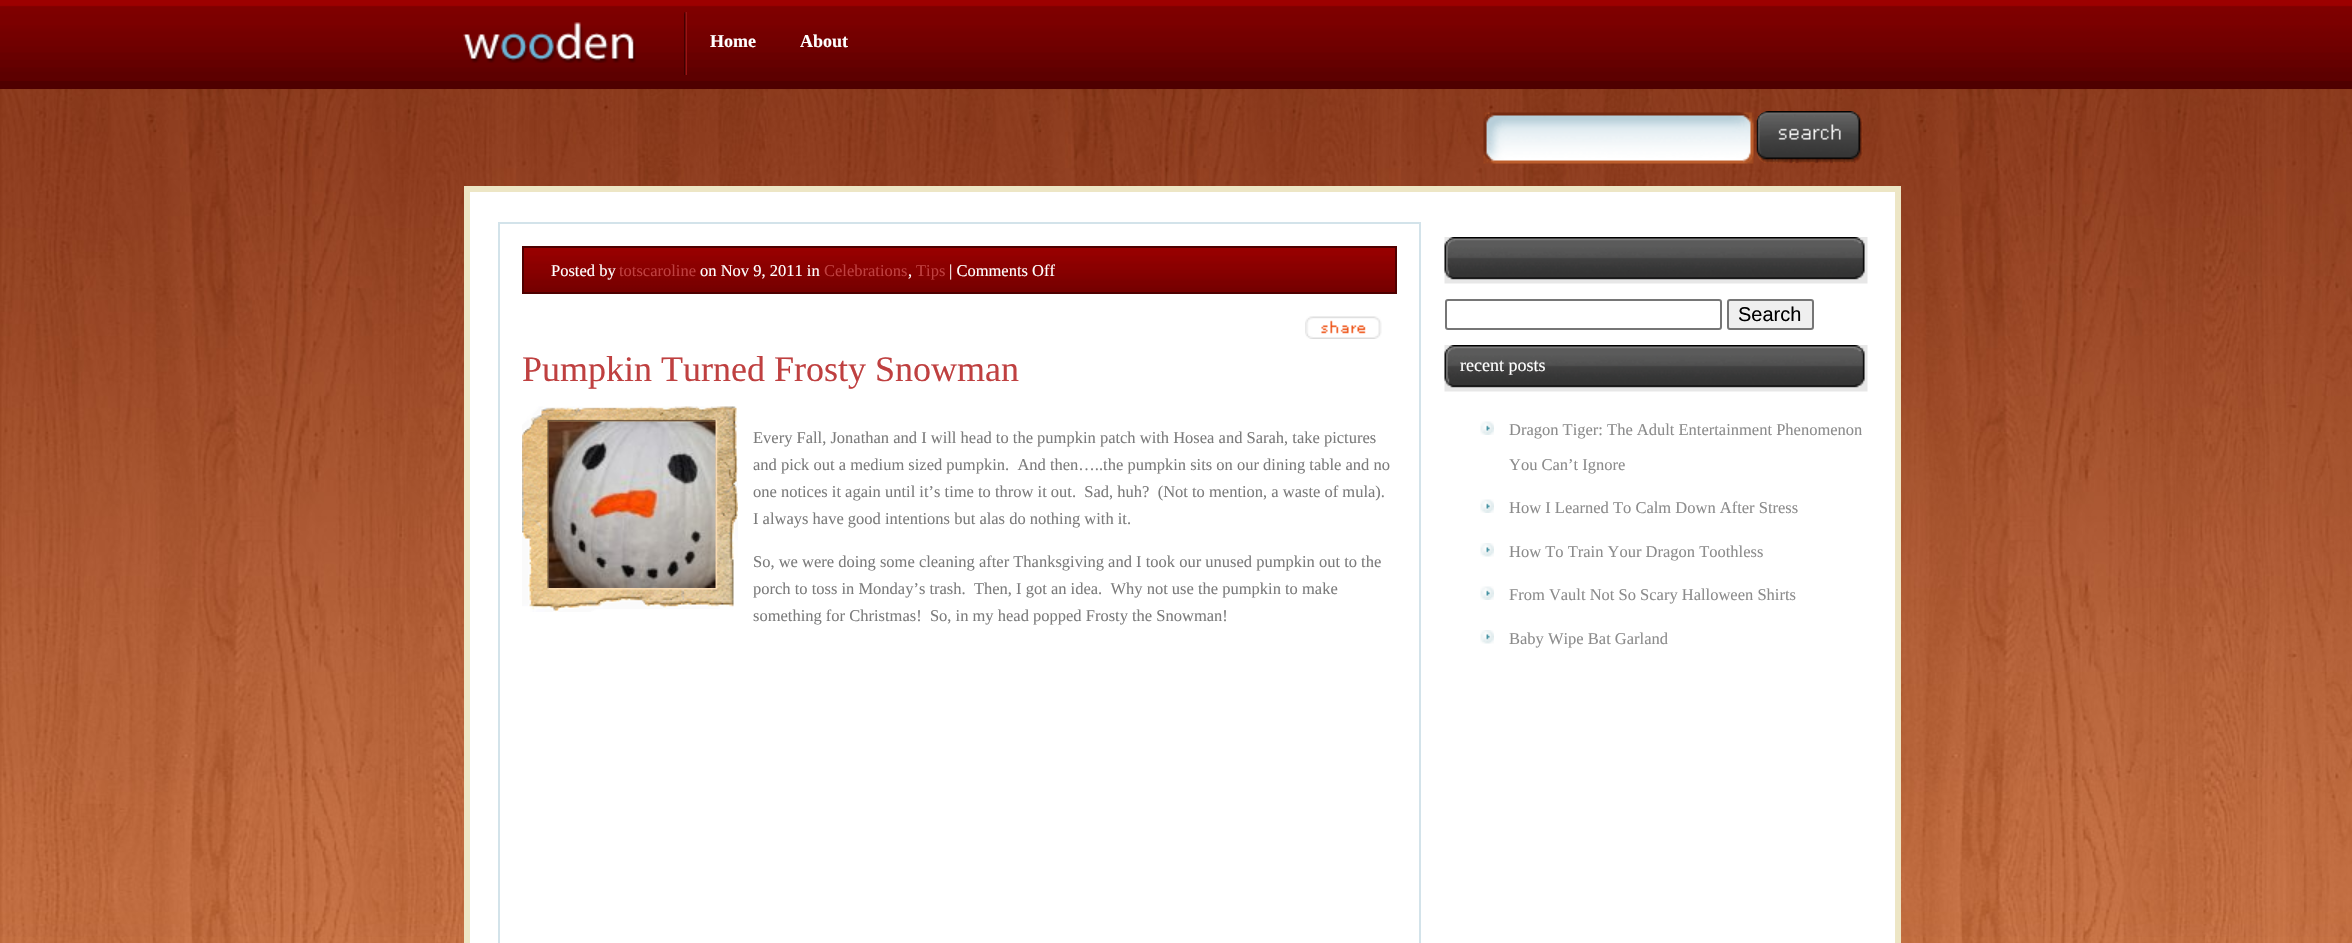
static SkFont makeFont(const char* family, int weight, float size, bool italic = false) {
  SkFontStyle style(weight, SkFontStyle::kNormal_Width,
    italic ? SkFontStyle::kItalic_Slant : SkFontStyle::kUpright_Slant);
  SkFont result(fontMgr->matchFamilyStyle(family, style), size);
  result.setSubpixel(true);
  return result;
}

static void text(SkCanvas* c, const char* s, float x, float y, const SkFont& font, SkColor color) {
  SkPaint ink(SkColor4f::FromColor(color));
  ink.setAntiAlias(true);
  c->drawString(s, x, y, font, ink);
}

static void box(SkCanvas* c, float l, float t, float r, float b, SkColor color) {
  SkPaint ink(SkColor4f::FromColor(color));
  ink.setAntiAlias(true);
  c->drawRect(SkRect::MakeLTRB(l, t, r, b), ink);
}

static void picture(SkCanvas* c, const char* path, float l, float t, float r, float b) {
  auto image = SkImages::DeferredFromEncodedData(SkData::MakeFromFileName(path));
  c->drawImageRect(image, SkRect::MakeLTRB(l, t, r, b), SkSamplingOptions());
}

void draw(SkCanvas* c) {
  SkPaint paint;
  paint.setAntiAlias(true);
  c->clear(0xffffffff);
  picture(c, "img_01.png", 0, 937, 2352, 943);
  picture(c, "img_02.png", 0, 89, 2352, 937);
  box(c, 0, 81, 2352, 89, 0xff4f0000);
  picture(c, "img_03.png", 0, 0, 2352, 81);
  picture(c, "img_04.png", 463, 22, 636, 63);
  picture(c, "img_05.png", 684, 12, 687, 75);
  SkFont face1 = makeFont("Liberation Serif", 700, 18);
  text(c, "Home", 710, 47, face1, 0xffffffff);
  text(c, "About", 800, 47, face1, 0xffffffff);
  picture(c, "img_06.png", 1483, 112, 1754, 164);
  picture(c, "img_07.png", 1756, 111, 1863, 164);
  paint.setColor(0xffffffff);
  c->drawRect(SkRect::MakeLTRB(467, 189, 1898, 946), paint);
  paint.setStyle(SkPaint::kStroke_Style);
  paint.setStrokeWidth(6);
  paint.setColor(0xffede6c5);
  c->drawRect(SkRect::MakeLTRB(467, 189, 1898, 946), paint);
  paint.setStrokeWidth(2);
  paint.setColor(0xffd3e3ea);
  c->drawRect(SkRect::MakeLTRB(499, 223, 1420, 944), paint);
  picture(c, "img_08.png", 524, 248, 1395, 292);
  paint.setColor(0xff4e0000);
  c->drawRect(SkRect::MakeLTRB(523, 247, 1396, 293), paint);
  SkFont face2 = makeFont("Liberation Serif", 400, 16.5f);
  text(c, "Posted by", 551, 276, face2, 0xffffffff);
  text(c, "totscaroline", 619, 276, face2, 0xffbf4040);
  text(c, "on Nov 9, 2011 in", 700, 276, face2, 0xffffffff);
  text(c, "Celebrations", 824, 276, face2, 0xffbf4040);
  text(c, ",", 908, 276, face2, 0xffffffff);
  text(c, "Tips", 916, 276, face2, 0xffbf4040);
  text(c, "| Comments Off", 949, 276, face2, 0xffffffff);
  picture(c, "img_09.png", 1305, 316, 1382, 339);
  SkFont face3 = makeFont("Liberation Serif", 400, 36);
  text(c, "Pumpkin Turned Frosty Snowman", 522, 381, face3, 0xffbf4040);
  picture(c, "img_10.png", 522, 406, 738, 612);
  picture(c, "img_11.png", 549, 421, 716, 588);
  text(c, "Every Fall, Jonathan and I will head to the pumpkin patch with Hosea and Sarah, take pictures", 753, 443, face2, 0xff7c7c7c);
  text(c, "and pick out a medium sized pumpkin.  And then…..the pumpkin sits on our dining table and no", 753, 470, face2, 0xff7c7c7c);
  text(c, "one notices it again until it’s time to throw it out.  Sad, huh?  (Not to mention, a waste of mula).", 753, 497, face2, 0xff7c7c7c);
  text(c, "I always have good intentions but alas do nothing with it.", 753, 524, face2, 0xff7c7c7c);
  text(c, "So, we were doing some cleaning after Thanksgiving and I took our unused pumpkin out to the", 753, 567, face2, 0xff7c7c7c);
  text(c, "porch to toss in Monday’s trash.  Then, I got an idea.  Why not use the pumpkin to make", 753, 594, face2, 0xff7c7c7c);
  text(c, "something for Christmas!  So, in my head popped Frosty the Snowman!", 753, 621, face2, 0xff7c7c7c);
  picture(c, "img_12.png", 1444, 237, 1868, 284);
  paint.setColor(0xff767676);
  c->drawRoundRect(SkRect::MakeLTRB(1446, 300, 1721, 329), 2, 2, paint);
  paint.setStyle(SkPaint::kFill_Style);
  paint.setColor(0xffefefef);
  c->drawRoundRect(SkRect::MakeLTRB(1728, 300, 1813, 329), 2, 2, paint);
  paint.setStyle(SkPaint::kStroke_Style);
  paint.setColor(0xff767676);
  c->drawRoundRect(SkRect::MakeLTRB(1728, 300, 1813, 329), 2, 2, paint);
  SkFont face4 = makeFont("Liberation Sans", 400, 20);
  text(c, "Search", 1738, 321, face4, 0xff000000);
  picture(c, "img_12.png", 1444, 345, 1868, 392);
  SkFont face5 = makeFont("Liberation Serif", 400, 18);
  text(c, "recent posts", 1460, 371, face5, 0xffffffff);
  picture(c, "img_13.png", 1480, 421, 1494, 435);
  text(c, "Dragon Tiger: The Adult Entertainment Phenomenon", 1509, 435, face2, 0xff8c8c8c);
  text(c, "You Can’t Ignore", 1509, 470, face2, 0xff8c8c8c);
  picture(c, "img_13.png", 1480, 499, 1494, 513);
  text(c, "How I Learned To Calm Down After Stress", 1509, 513, face2, 0xff8c8c8c);
  picture(c, "img_14.png", 1480, 543, 1494, 557);
  text(c, "How To Train Your Dragon Toothless", 1509, 557, face2, 0xff8c8c8c);
  picture(c, "img_13.png", 1480, 586, 1494, 600);
  text(c, "From Vault Not So Scary Halloween Shirts", 1509, 600, face2, 0xff8c8c8c);
  picture(c, "img_14.png", 1480, 630, 1494, 644);
  text(c, "Baby Wipe Bat Garland", 1509, 644, face2, 0xff8c8c8c);
}
